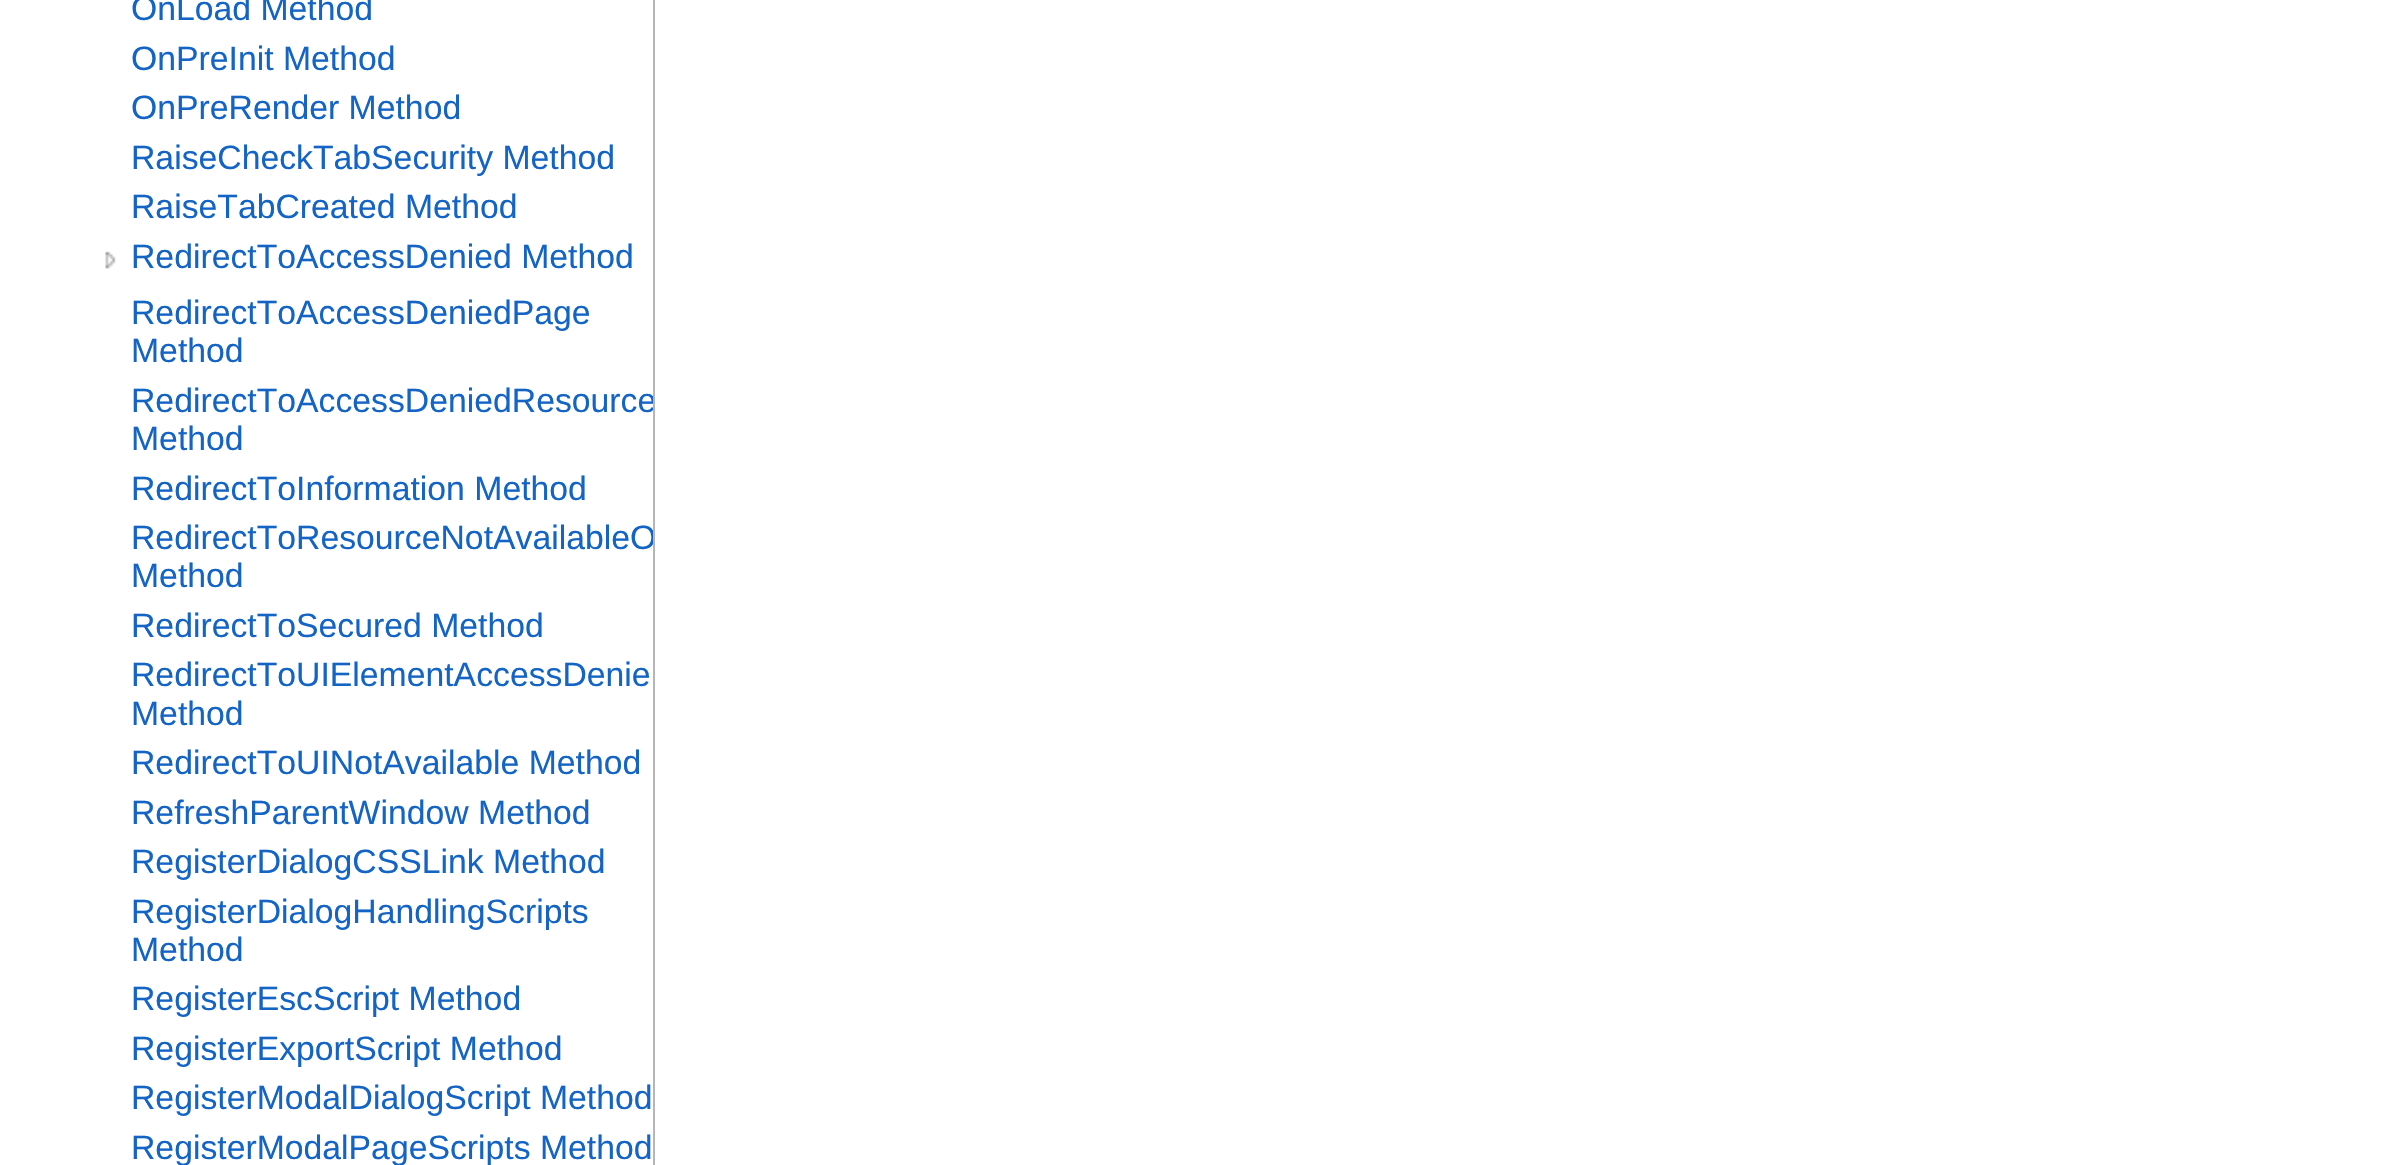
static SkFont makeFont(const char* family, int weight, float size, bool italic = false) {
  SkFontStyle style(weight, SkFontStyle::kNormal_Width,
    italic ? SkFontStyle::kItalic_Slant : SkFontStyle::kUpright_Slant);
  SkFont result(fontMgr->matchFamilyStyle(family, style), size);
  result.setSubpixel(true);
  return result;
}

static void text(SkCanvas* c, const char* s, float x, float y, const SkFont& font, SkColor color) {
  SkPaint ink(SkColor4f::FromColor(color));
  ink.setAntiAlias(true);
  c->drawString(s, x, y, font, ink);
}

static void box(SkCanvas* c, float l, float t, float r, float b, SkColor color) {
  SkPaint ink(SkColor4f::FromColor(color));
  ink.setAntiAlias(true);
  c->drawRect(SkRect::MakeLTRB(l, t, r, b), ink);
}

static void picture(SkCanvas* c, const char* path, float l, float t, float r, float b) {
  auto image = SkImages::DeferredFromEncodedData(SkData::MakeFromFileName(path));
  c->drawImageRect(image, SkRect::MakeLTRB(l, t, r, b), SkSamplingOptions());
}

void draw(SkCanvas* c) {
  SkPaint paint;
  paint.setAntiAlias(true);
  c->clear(0xffffffff);
  box(c, 653, 0, 655, 1165, 0xffb6b6b6);
  SkFont face1 = makeFont("Liberation Sans", 400, 33.75f);
  text(c, "OnLoad Method", 131, 20, face1, 0xff1364c4);
  text(c, "OnPreInit Method", 131, 70, face1, 0xff1364c4);
  text(c, "OnPreRender Method", 131, 119, face1, 0xff1364c4);
  text(c, "RaiseCheckTabSecurity Method", 131, 169, face1, 0xff1364c4);
  text(c, "RaiseTabCreated Method", 131, 218, face1, 0xff1364c4);
  picture(c, "img_01.png", 105, 251, 116, 269);
  text(c, "RedirectToAccessDenied Method", 131, 268, face1, 0xff1364c4);
  text(c, "RedirectToAccessDeniedPage", 131, 324, face1, 0xff1364c4);
  text(c, "Method", 131, 362, face1, 0xff1364c4);
  c->save();
  c->clipRect(SkRect::MakeLTRB(131, 380, 653, 457));
  text(c, "RedirectToAccessDeniedResource", 131, 412, face1, 0xff1364c4);
  c->restore();
  text(c, "Method", 131, 450, face1, 0xff1364c4);
  text(c, "RedirectToInformation Method", 131, 500, face1, 0xff1364c4);
  c->save();
  c->clipRect(SkRect::MakeLTRB(131, 518, 653, 594));
  text(c, "RedirectToResourceNotAvailableO", 131, 549, face1, 0xff1364c4);
  c->restore();
  text(c, "Method", 131, 587, face1, 0xff1364c4);
  text(c, "RedirectToSecured Method", 131, 637, face1, 0xff1364c4);
  text(c, "RedirectToUIElementAccessDenie", 131, 686, face1, 0xff1364c4);
  text(c, "Method", 131, 725, face1, 0xff1364c4);
  text(c, "RedirectToUINotAvailable Method", 131, 774, face1, 0xff1364c4);
  text(c, "RefreshParentWindow Method", 131, 824, face1, 0xff1364c4);
  text(c, "RegisterDialogCSSLink Method", 131, 873, face1, 0xff1364c4);
  text(c, "RegisterDialogHandlingScripts", 131, 923, face1, 0xff1364c4);
  text(c, "Method", 131, 961, face1, 0xff1364c4);
  text(c, "RegisterEscScript Method", 131, 1010, face1, 0xff1364c4);
  text(c, "RegisterExportScript Method", 131, 1060, face1, 0xff1364c4);
  text(c, "RegisterModalDialogScript Method", 131, 1109, face1, 0xff1364c4);
  text(c, "RegisterModalPageScripts Method", 131, 1159, face1, 0xff1364c4);
}
